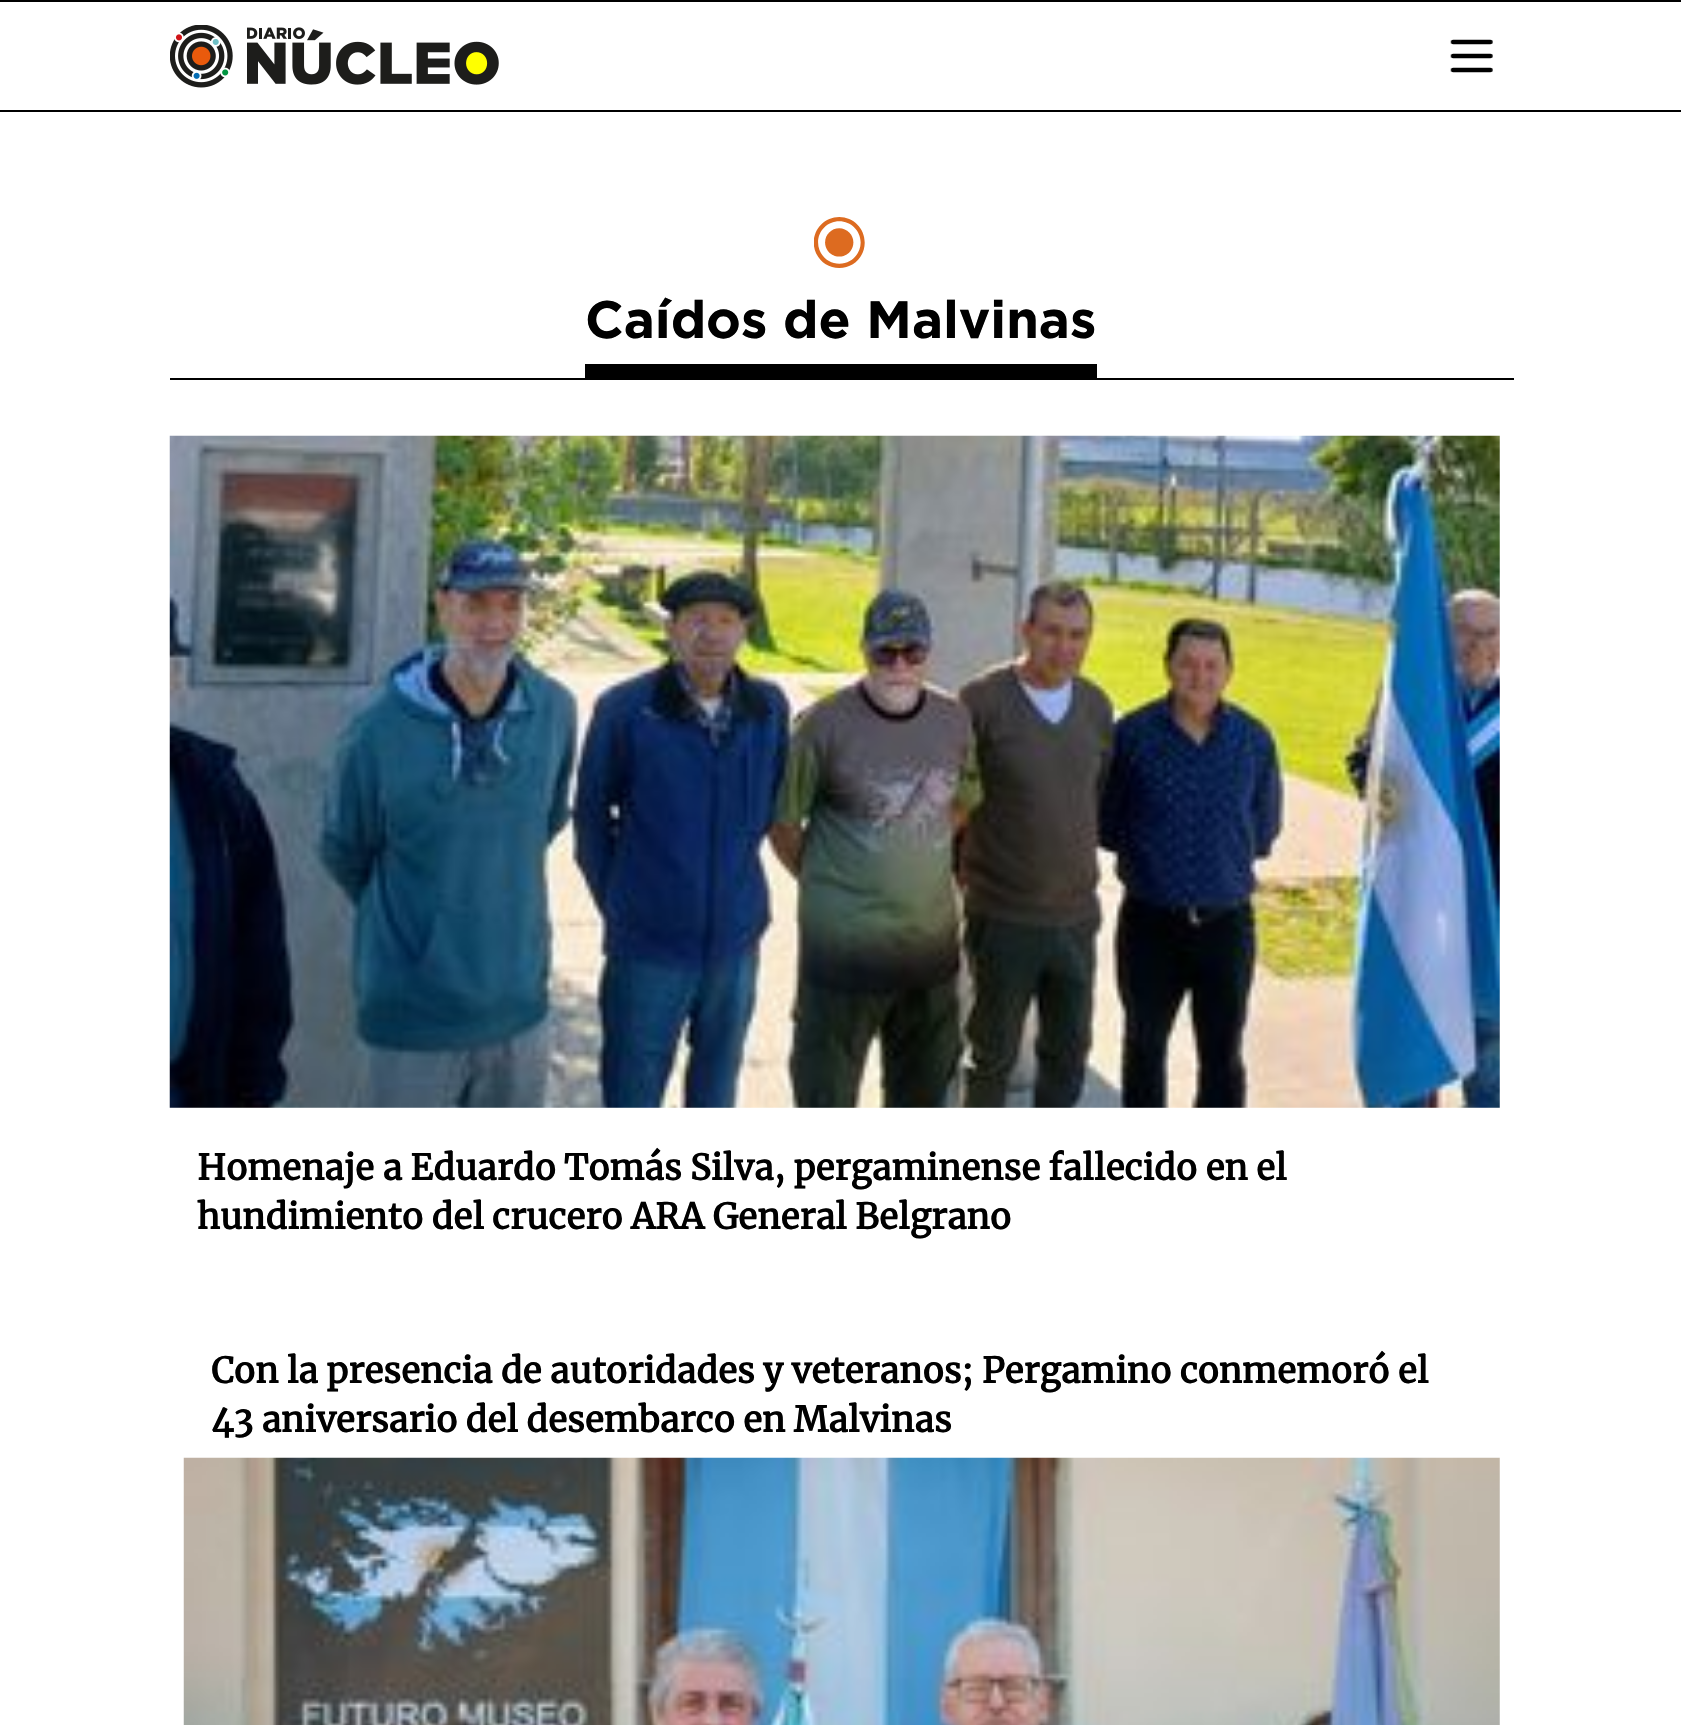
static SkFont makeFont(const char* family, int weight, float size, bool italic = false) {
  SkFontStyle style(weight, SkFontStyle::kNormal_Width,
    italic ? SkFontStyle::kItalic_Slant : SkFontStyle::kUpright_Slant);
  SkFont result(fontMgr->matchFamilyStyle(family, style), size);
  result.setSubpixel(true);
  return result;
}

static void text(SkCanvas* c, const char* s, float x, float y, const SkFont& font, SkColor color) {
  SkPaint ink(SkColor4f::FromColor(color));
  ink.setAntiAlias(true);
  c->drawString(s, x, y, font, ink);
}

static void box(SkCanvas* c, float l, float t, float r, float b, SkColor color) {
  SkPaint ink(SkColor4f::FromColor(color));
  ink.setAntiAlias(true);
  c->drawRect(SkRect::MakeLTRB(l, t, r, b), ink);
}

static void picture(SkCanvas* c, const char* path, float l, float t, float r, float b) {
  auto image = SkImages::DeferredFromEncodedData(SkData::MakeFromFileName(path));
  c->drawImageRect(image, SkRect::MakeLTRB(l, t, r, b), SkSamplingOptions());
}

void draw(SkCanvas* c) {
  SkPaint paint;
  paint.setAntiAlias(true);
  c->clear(0xffffffff);
  box(c, 0, 0, 1681, 2, 0xff000000);
  box(c, 0, 110, 1681, 112, 0xff000000);
  picture(c, "img_01.png", 170, 25, 233, 88);
  picture(c, "img_02.png", 247, 27, 499, 85);
  picture(c, "img_03.png", 1450, 39, 1493, 73);
  picture(c, "img_04.png", 814, 217, 865, 268);
  box(c, 585, 364, 1097, 378, 0xff000000);
  SkFont face1 = makeFont("Gotham", 700, 52.5f);
  text(c, "Caídos de Malvinas", 585, 338, face1, 0xff000000);
  box(c, 170, 378, 1514, 380, 0xff000000);
  picture(c, "img_05.png", 169, 435, 1500, 1108);
  SkFont face2 = makeFont("Merriweather", 700, 35);
  text(c, "Homenaje a Eduardo Tomás Silva, pergaminense fallecido en el", 197, 1180, face2, 0xff000000);
  text(c, "hundimiento del crucero ARA General Belgrano", 197, 1229, face2, 0xff000000);
  text(c, "Con la presencia de autoridades y veteranos; Pergamino conmemoró el", 211, 1383, face2, 0xff000000);
  text(c, "43 aniversario del desembarco en Malvinas", 211, 1432, face2, 0xff000000);
  picture(c, "img_06.png", 183, 1457, 1500, 1725);
}
